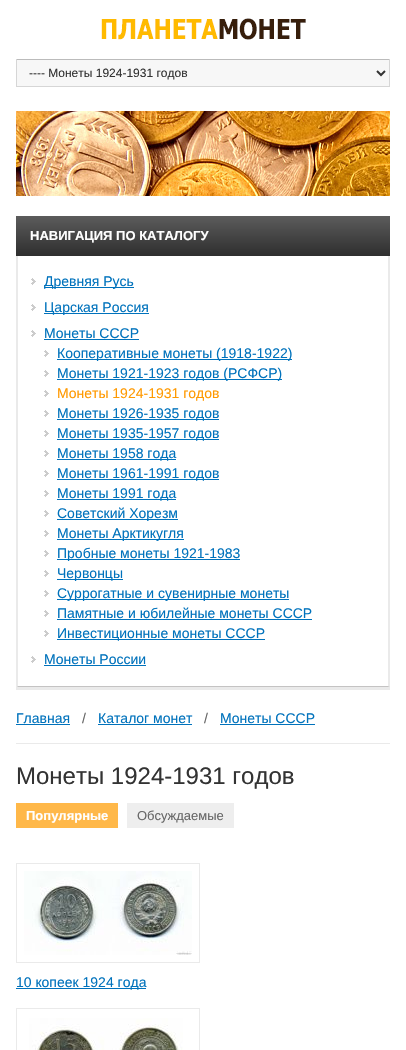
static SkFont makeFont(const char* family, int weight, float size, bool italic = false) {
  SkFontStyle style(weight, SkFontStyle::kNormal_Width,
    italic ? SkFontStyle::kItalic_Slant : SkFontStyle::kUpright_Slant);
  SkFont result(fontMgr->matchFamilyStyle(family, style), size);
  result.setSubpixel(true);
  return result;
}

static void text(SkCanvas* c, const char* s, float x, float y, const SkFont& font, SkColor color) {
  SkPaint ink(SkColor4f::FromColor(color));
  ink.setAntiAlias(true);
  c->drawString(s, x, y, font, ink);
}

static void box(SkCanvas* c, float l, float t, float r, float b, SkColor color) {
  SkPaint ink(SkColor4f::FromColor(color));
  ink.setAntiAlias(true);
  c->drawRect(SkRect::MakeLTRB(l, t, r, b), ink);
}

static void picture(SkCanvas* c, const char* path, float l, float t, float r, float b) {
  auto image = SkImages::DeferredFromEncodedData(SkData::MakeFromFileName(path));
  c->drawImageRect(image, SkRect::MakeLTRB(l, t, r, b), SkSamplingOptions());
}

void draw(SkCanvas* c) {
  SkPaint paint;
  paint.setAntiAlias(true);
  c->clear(0xffffffff);
  picture(c, "img_01.png", 101, 18, 306, 40);
  box(c, 17, 60, 389, 86, 0xfff7f7f7);
  box(c, 16, 59, 390, 60, 0xffbbbbbb);
  box(c, 389, 59, 390, 87, 0xffd6d6d6);
  box(c, 16, 86, 390, 87, 0xffd6d6d6);
  box(c, 16, 59, 17, 87, 0xffd6d6d6);
  paint.setStyle(SkPaint::kStroke_Style);
  paint.setStrokeWidth(2);
  paint.setColor(0xff333333);
  c->drawPath(SkPathBuilder().moveTo(377, 71).lineTo(381, 75).lineTo(385, 71).detach(), paint);
  SkFont face1 = makeFont("Liberation Sans", 400, 12);
  text(c, "---- Монеты 1924-1931 годов", 29, 77, face1, 0xff333333);
  picture(c, "img_02.png", 16, 111, 390, 196);
  box(c, 16, 687, 390, 690, 0xffeaeaea);
  paint.setStyle(SkPaint::kFill_Style);
  {
    const SkColor colors[] = {0xff5c5c5c, 0xff2e2e2e};
    const float stops[] = {0, 1};
    const SkPoint ends[] = {{203, 216}, {203, 256}};
    paint.setShader(SkGradientShader::MakeLinear(ends, colors, stops, 2, SkTileMode::kClamp));
    paint.setAlpha(255);
  }
  c->drawRect(SkRect::MakeLTRB(16, 216, 390, 256), paint);
  SkFont face2 = makeFont("Liberation Sans", 700, 13);
  text(c, "НАВИГАЦИЯ ПО КАТАЛОГУ", 30, 240, face2, 0xffffffff);
  paint.setShader(nullptr);
  paint.setColor(0xffeaeaea);
  c->drawPath(SkPathBuilder().moveTo(390, 256).lineTo(390, 687).lineTo(388, 686).lineTo(388, 256).close().detach(), paint);
  paint.setColor(0xffc4c3c3);
  c->drawPath(SkPathBuilder().moveTo(390, 687).lineTo(16, 687).lineTo(18, 686).lineTo(388, 686).close().detach(), paint);
  paint.setColor(0xffeaeaea);
  c->drawPath(SkPathBuilder().moveTo(16, 687).lineTo(16, 256).lineTo(18, 256).lineTo(18, 686).close().detach(), paint);
  picture(c, "img_03.png", 31, 278, 36, 285);
  box(c, 44, 287, 134, 288, 0xff0072bc);
  SkFont face3 = makeFont("Liberation Sans", 400, 14);
  text(c, "Древняя Русь", 44, 286, face3, 0xff0072bc);
  picture(c, "img_03.png", 31, 304, 36, 311);
  box(c, 44, 313, 149, 314, 0xff0072bc);
  text(c, "Царская Россия", 44, 312, face3, 0xff0072bc);
  picture(c, "img_03.png", 31, 330, 36, 337);
  text(c, "Монеты СССР", 44, 338, face3, 0xff0072bc);
  box(c, 44, 339, 139, 340, 0xff0072bc);
  picture(c, "img_03.png", 44, 350, 49, 357);
  box(c, 57, 359, 292, 360, 0xff0072bc);
  text(c, "Кооперативные монеты (1918-1922)", 57, 358, face3, 0xff0072bc);
  picture(c, "img_03.png", 44, 370, 49, 377);
  box(c, 57, 379, 282, 380, 0xff0072bc);
  text(c, "Монеты 1921-1923 годов (РСФСР)", 57, 378, face3, 0xff0072bc);
  picture(c, "img_03.png", 44, 390, 49, 397);
  text(c, "Монеты 1924-1931 годов", 57, 398, face3, 0xffff9900);
  picture(c, "img_03.png", 44, 410, 49, 417);
  box(c, 57, 419, 219, 420, 0xff0072bc);
  text(c, "Монеты 1926-1935 годов", 57, 418, face3, 0xff0072bc);
  picture(c, "img_03.png", 44, 430, 49, 437);
  box(c, 57, 439, 219, 440, 0xff0072bc);
  text(c, "Монеты 1935-1957 годов", 57, 438, face3, 0xff0072bc);
  picture(c, "img_03.png", 44, 450, 49, 457);
  box(c, 57, 459, 176, 460, 0xff0072bc);
  text(c, "Монеты 1958 года", 57, 458, face3, 0xff0072bc);
  picture(c, "img_03.png", 44, 470, 49, 477);
  box(c, 57, 479, 219, 480, 0xff0072bc);
  text(c, "Монеты 1961-1991 годов", 57, 478, face3, 0xff0072bc);
  picture(c, "img_03.png", 44, 490, 49, 497);
  box(c, 57, 499, 176, 500, 0xff0072bc);
  text(c, "Монеты 1991 года", 57, 498, face3, 0xff0072bc);
  picture(c, "img_03.png", 44, 510, 49, 517);
  box(c, 57, 519, 178, 520, 0xff0072bc);
  text(c, "Советский Хорезм", 57, 518, face3, 0xff0072bc);
  picture(c, "img_03.png", 44, 530, 49, 537);
  box(c, 57, 539, 184, 540, 0xff0072bc);
  text(c, "Монеты Арктикугля", 57, 538, face3, 0xff0072bc);
  picture(c, "img_03.png", 44, 550, 49, 557);
  box(c, 57, 559, 240, 560, 0xff0072bc);
  text(c, "Пробные монеты 1921-1983", 57, 558, face3, 0xff0072bc);
  picture(c, "img_03.png", 44, 570, 49, 577);
  box(c, 57, 579, 123, 580, 0xff0072bc);
  text(c, "Червонцы", 57, 578, face3, 0xff0072bc);
  picture(c, "img_03.png", 44, 590, 49, 597);
  box(c, 57, 599, 289, 600, 0xff0072bc);
  text(c, "Суррогатные и сувенирные монеты", 57, 598, face3, 0xff0072bc);
  picture(c, "img_03.png", 44, 610, 49, 617);
  text(c, "Памятные и юбилейные монеты СССР", 57, 618, face3, 0xff0072bc);
  box(c, 57, 619, 312, 620, 0xff0072bc);
  picture(c, "img_03.png", 44, 630, 49, 637);
  box(c, 57, 639, 265, 640, 0xff0072bc);
  text(c, "Инвестиционные монеты СССР", 57, 638, face3, 0xff0072bc);
  picture(c, "img_03.png", 31, 656, 36, 663);
  text(c, "Монеты России", 44, 664, face3, 0xff0072bc);
  box(c, 44, 665, 146, 666, 0xff0072bc);
  box(c, 16, 743, 390, 744, 0xffeaeaea);
  text(c, "Главная", 16, 723, face3, 0xff0072bc);
  box(c, 16, 724, 70, 725, 0xff0072bc);
  text(c, "/", 82, 723, face3, 0xff666666);
  text(c, "Каталог монет", 98, 723, face3, 0xff0072bc);
  box(c, 98, 724, 192, 725, 0xff0072bc);
  text(c, "/", 204, 723, face3, 0xff666666);
  text(c, "Монеты СССР", 220, 723, face3, 0xff0072bc);
  box(c, 220, 724, 315, 725, 0xff0072bc);
  SkFont face4 = makeFont("Liberation Sans", 400, 24);
  text(c, "Монеты 1924-1931 годов", 16, 784, face4, 0xff333333);
  box(c, 16, 803, 118, 828, 0xffffb849);
  text(c, "Популярные", 26, 820, face2, 0xffffffff);
  box(c, 127, 803, 234, 828, 0xffeeeeee);
  SkFont face5 = makeFont("Liberation Sans", 400, 13);
  text(c, "Обсуждаемые", 137, 820, face5, 0xff666666);
  paint.setStyle(SkPaint::kStroke_Style);
  paint.setStrokeWidth(1);
  c->drawRect(SkRect::MakeLTRB(16.5f, 863.5f, 199.5f, 962.5f), paint);
  picture(c, "img_04.png", 24, 871, 192, 955);
  box(c, 16, 988, 146, 989, 0xff0072bc);
  text(c, "10 копеек 1924 года", 16, 987, face3, 0xff0072bc);
  c->drawRect(SkRect::MakeLTRB(16.5f, 1008.5f, 199.5f, 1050.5f), paint);
  picture(c, "img_05.png", 29, 1018, 183, 1050);
}
